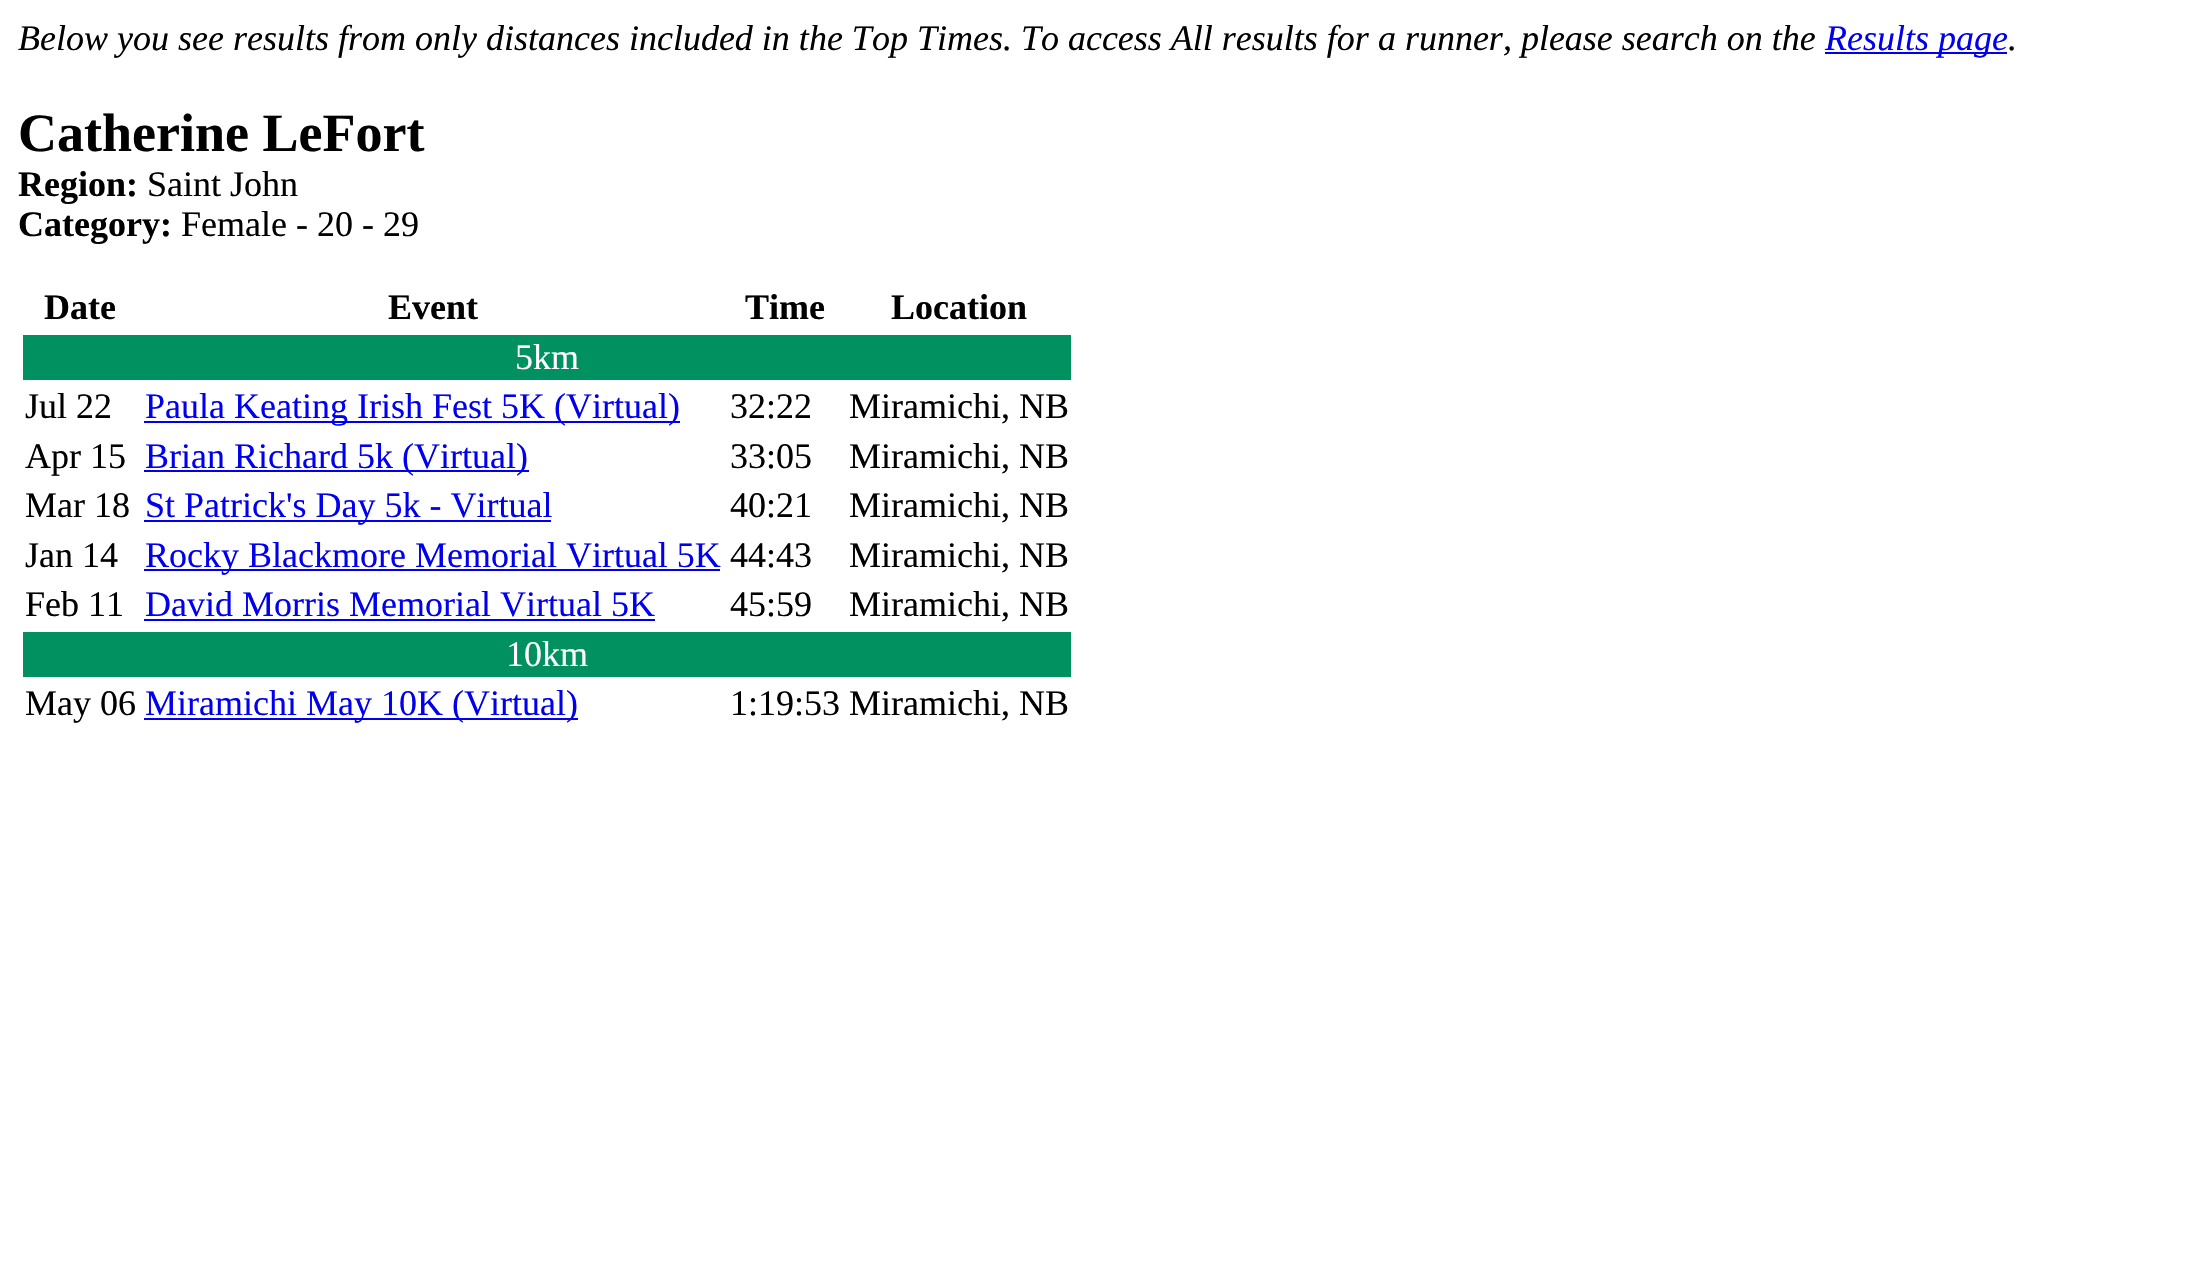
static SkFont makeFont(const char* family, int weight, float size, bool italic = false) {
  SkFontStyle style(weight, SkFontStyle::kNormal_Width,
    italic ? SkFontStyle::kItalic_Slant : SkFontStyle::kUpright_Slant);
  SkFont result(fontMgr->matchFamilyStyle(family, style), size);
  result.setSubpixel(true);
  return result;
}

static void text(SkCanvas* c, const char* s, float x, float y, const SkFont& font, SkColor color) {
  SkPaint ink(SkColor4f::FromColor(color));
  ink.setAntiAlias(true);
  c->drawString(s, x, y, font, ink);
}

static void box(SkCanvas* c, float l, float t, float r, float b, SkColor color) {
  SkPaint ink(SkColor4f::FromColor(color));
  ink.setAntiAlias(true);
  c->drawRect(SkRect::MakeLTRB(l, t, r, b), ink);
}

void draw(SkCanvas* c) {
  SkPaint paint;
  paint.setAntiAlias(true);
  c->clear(0xffffffff);
  SkFont face1 = makeFont("Liberation Serif", 400, 36, true);
  text(c, "Below you see results from only distances included in the Top Times. To access All results for a runner, please search on the", 18, 50, face1, 0xff000000);
  box(c, 1825, 52, 2007, 54, 0xff0000ee);
  text(c, "Results page", 1825, 50, face1, 0xff0000ee);
  text(c, ".", 2008, 50, face1, 0xff000000);
  SkFont face2 = makeFont("Liberation Serif", 700, 54);
  text(c, "Catherine LeFort", 18, 151, face2, 0xff000000);
  SkFont face3 = makeFont("Liberation Serif", 700, 36);
  text(c, "Region:", 18, 196, face3, 0xff000000);
  SkFont face4 = makeFont("Liberation Serif", 400, 36);
  text(c, "Saint John", 147, 196, face4, 0xff000000);
  text(c, "Category:", 18, 236, face3, 0xff000000);
  text(c, "Female - 20 - 29", 181, 236, face4, 0xff000000);
  text(c, "Date", 44, 319, face3, 0xff000000);
  text(c, "Event", 388, 319, face3, 0xff000000);
  text(c, "Time", 745, 319, face3, 0xff000000);
  text(c, "Location", 891, 319, face3, 0xff000000);
  box(c, 23, 335, 1071, 380, 0xff019160);
  text(c, "5km", 515, 369, face4, 0xffffffff);
  text(c, "Jul 22", 25, 418, face4, 0xff000000);
  box(c, 144, 421, 680, 423, 0xff0000ee);
  text(c, "Paula Keating Irish Fest 5K (Virtual)", 145, 418, face4, 0xff0000ee);
  text(c, "32:22", 730, 418, face4, 0xff000000);
  text(c, "Miramichi, NB", 849, 418, face4, 0xff000000);
  text(c, "Apr 15", 25, 468, face4, 0xff000000);
  box(c, 144, 470, 529, 472, 0xff0000ee);
  text(c, "Brian Richard 5k (Virtual)", 145, 468, face4, 0xff0000ee);
  text(c, "33:05", 730, 468, face4, 0xff000000);
  text(c, "Miramichi, NB", 849, 468, face4, 0xff000000);
  text(c, "Mar 18", 25, 517, face4, 0xff000000);
  box(c, 144, 520, 551, 522, 0xff0000ee);
  text(c, "St Patrick's Day 5k - Virtual", 145, 517, face4, 0xff0000ee);
  text(c, "40:21", 730, 517, face4, 0xff000000);
  text(c, "Miramichi, NB", 849, 517, face4, 0xff000000);
  text(c, "Jan 14", 25, 567, face4, 0xff000000);
  box(c, 144, 569, 720, 571, 0xff0000ee);
  text(c, "Rocky Blackmore Memorial Virtual 5K", 145, 567, face4, 0xff0000ee);
  text(c, "44:43", 730, 567, face4, 0xff000000);
  text(c, "Miramichi, NB", 849, 567, face4, 0xff000000);
  text(c, "Feb 11", 25, 616, face4, 0xff000000);
  text(c, "David Morris Memorial Virtual 5K", 145, 616, face4, 0xff0000ee);
  box(c, 144, 619, 655, 621, 0xff0000ee);
  text(c, "45:59", 730, 616, face4, 0xff000000);
  text(c, "Miramichi, NB", 849, 616, face4, 0xff000000);
  box(c, 23, 632, 1071, 677, 0xff019160);
  text(c, "10km", 506, 666, face4, 0xffffffff);
  text(c, "May 06", 25, 715, face4, 0xff000000);
  box(c, 144, 718, 578, 720, 0xff0000ee);
  text(c, "Miramichi May 10K (Virtual)", 145, 715, face4, 0xff0000ee);
  text(c, "1:19:53 Miramichi, NB", 730, 715, face4, 0xff000000);
}
